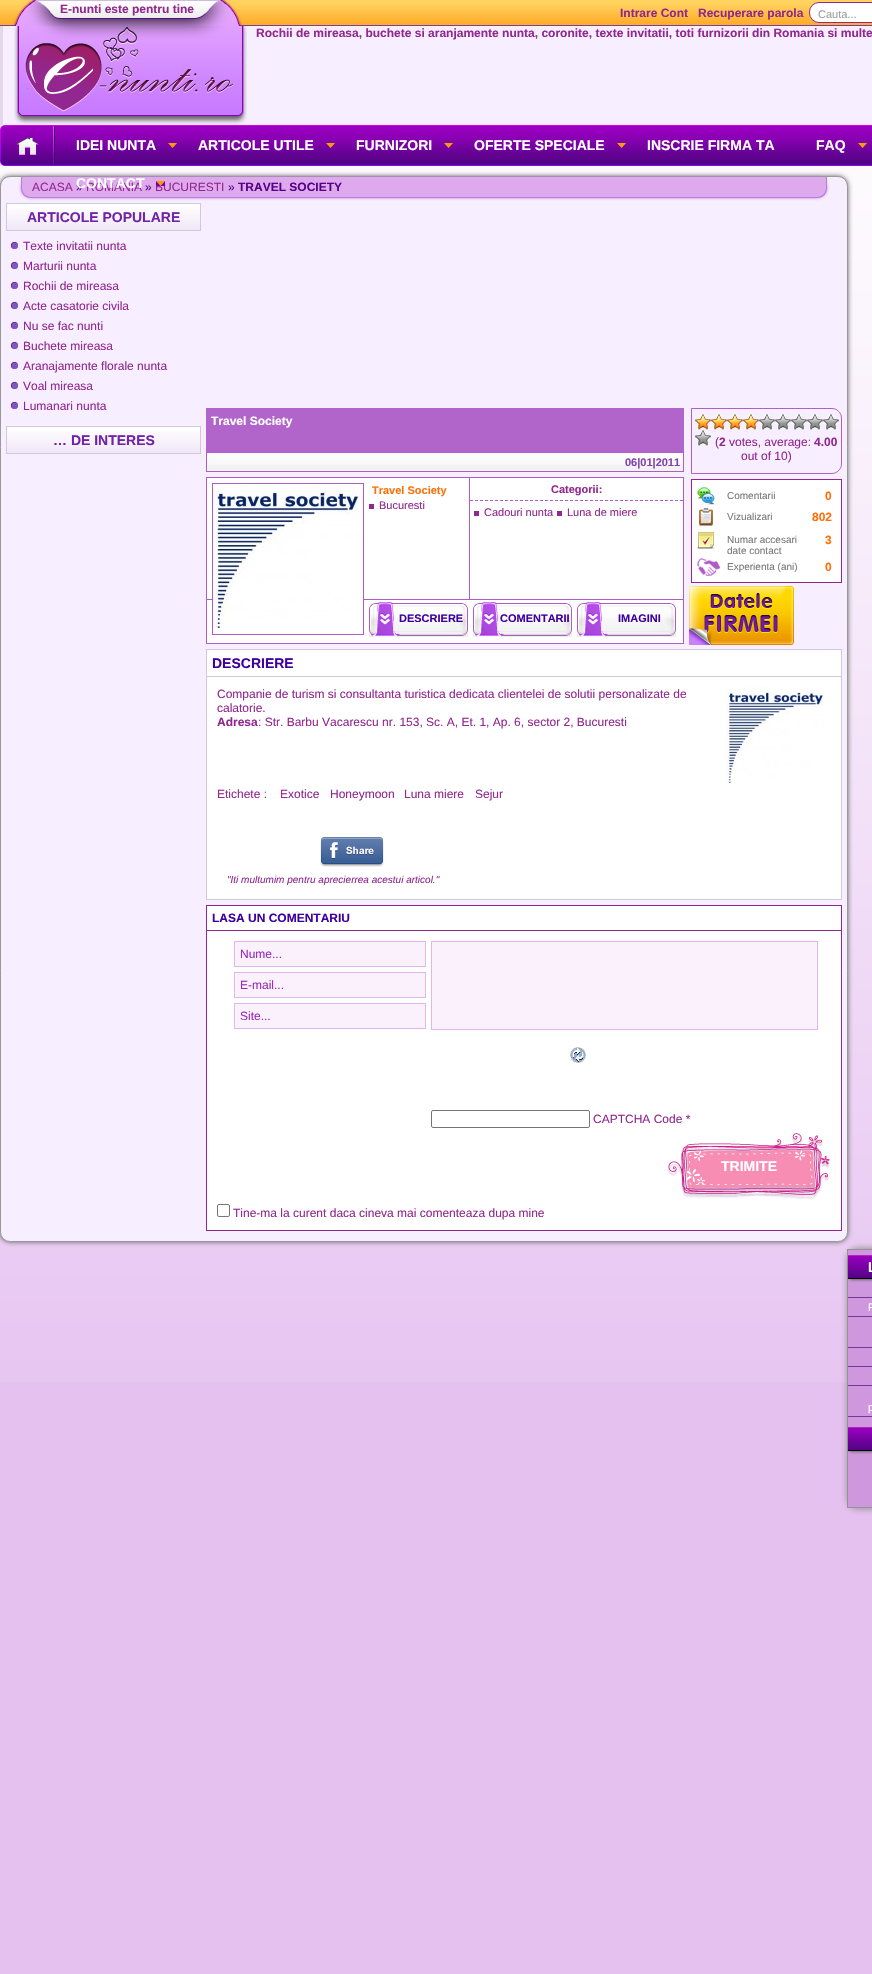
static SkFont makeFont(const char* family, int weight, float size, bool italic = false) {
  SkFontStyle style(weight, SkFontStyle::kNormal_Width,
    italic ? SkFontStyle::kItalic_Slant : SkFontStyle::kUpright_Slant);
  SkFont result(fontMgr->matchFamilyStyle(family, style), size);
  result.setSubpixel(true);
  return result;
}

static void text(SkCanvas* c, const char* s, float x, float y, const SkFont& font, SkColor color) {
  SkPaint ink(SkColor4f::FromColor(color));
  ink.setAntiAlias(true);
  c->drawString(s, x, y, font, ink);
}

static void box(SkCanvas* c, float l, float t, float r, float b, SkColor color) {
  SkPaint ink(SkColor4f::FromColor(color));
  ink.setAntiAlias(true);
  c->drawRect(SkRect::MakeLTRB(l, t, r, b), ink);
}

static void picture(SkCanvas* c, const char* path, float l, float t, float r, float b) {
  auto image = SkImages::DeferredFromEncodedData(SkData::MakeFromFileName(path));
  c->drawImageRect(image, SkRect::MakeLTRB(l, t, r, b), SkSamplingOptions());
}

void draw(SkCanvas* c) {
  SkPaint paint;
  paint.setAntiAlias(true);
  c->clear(0xffe5c1f0);
  picture(c, "img_01.png", 0, 166, 872, 1382);
  box(c, 0, 22, 872, 25, 0xffffae2c);
  picture(c, "img_02.png", 0, 0, 872, 22);
  box(c, 0, 25, 872, 26, 0xff7b3c9a);
  picture(c, "img_03.png", 12, 0, 243, 26);
  SkFont face1 = makeFont("Liberation Sans", 700, 12);
  text(c, "E-nunti este pentru tine", 60, 13, face1, 0xff92278f);
  text(c, "Intrare Cont", 620, 17, face1, 0xff92278f);
  text(c, "Recuperare parola", 698, 17, face1, 0xff92278f);
  paint.setColor(0xffffffff);
  c->drawRoundRect(SkRect::MakeLTRB(809.5f, 2.5f, 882.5f, 22.5f), 9.5f, 9.5f, paint);
  paint.setStyle(SkPaint::kStroke_Style);
  paint.setStrokeWidth(1);
  paint.setColor(0xff92278f);
  c->drawRoundRect(SkRect::MakeLTRB(809.5f, 2.5f, 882.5f, 22.5f), 9.5f, 9.5f, paint);
  SkFont face2 = makeFont("Liberation Sans", 400, 11);
  text(c, "Cauta...", 818, 18, face2, 0xff9f9f9f);
  box(c, 3, 26, 872, 125, 0xfff7eeff);
  box(c, 0, 26, 3, 130, 0xffe4d8e8);
  picture(c, "img_04.png", 14, 26, 247, 124);
  text(c, "Rochii de mireasa, buchete si aranjamente nunta, coronite, texte invitatii, toti furnizorii din Romania si multe", 256, 37, face1, 0xff92278f);
  picture(c, "img_05.png", 0, 125, 5, 166);
  picture(c, "img_06.png", 5, 126, 872, 165);
  box(c, 5, 125, 872, 126, 0xffd600e4);
  box(c, 5, 165, 872, 166, 0xff8600fe);
  picture(c, "img_07.png", 53, 126, 55, 165);
  picture(c, "img_08.png", 16, 137, 39, 155);
  picture(c, "img_09.png", 168, 143, 177, 148);
  SkFont face3 = makeFont("Liberation Sans", 700, 14);
  text(c, "IDEI NUNTA", 76, 150, face3, 0xffffffff);
  picture(c, "img_09.png", 326, 143, 335, 148);
  text(c, "ARTICOLE UTILE", 198, 150, face3, 0xffffffff);
  picture(c, "img_09.png", 444, 143, 453, 148);
  text(c, "FURNIZORI", 356, 150, face3, 0xffffffff);
  picture(c, "img_09.png", 617, 143, 626, 148);
  text(c, "OFERTE SPECIALE", 474, 150, face3, 0xffffffff);
  text(c, "INSCRIE FIRMA TA", 647, 150, face3, 0xffffffff);
  picture(c, "img_09.png", 858, 143, 867, 148);
  text(c, "FAQ", 816, 150, face3, 0xffffffff);
  paint.setStyle(SkPaint::kFill_Style);
  paint.setColor(0xff949394);
  paint.setMaskFilter(SkMaskFilter::MakeBlur(kNormal_SkBlurStyle, 3));
  c->drawRoundRect(SkRect::MakeLTRB(847, 1248, 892, 1509), 11, 11, paint);
  paint.setMaskFilter(nullptr);
  paint.setColor(0xffce97de);
  c->drawRect(SkRect::MakeLTRB(847.5f, 1249.5f, 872.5f, 1507.5f), paint);
  paint.setStyle(SkPaint::kStroke_Style);
  paint.setColor(0xff949394);
  c->drawRect(SkRect::MakeLTRB(847.5f, 1249.5f, 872.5f, 1507.5f), paint);
  paint.setStyle(SkPaint::kFill_Style);
  paint.setColor(0xff666666);
  paint.setMaskFilter(SkMaskFilter::MakeBlur(kNormal_SkBlurStyle, 2.5f));
  c->drawRoundRect(SkRect::MakeLTRB(0, 176, 848, 1242), 10, 10, paint);
  paint.setMaskFilter(nullptr);
  paint.setColor(0xfff7eeff);
  c->drawRoundRect(SkRect::MakeLTRB(0.5f, 176.5f, 847.5f, 1241.5f), 9.5f, 9.5f, paint);
  paint.setStyle(SkPaint::kStroke_Style);
  paint.setColor(0xff999999);
  c->drawRoundRect(SkRect::MakeLTRB(0.5f, 176.5f, 847.5f, 1241.5f), 9.5f, 9.5f, paint);
  paint.setStyle(SkPaint::kFill_Style);
  paint.setColor(0xffba7cd6);
  paint.setMaskFilter(SkMaskFilter::MakeBlur(kNormal_SkBlurStyle, 1.5f));
  c->drawRoundRect(SkRect::MakeLTRB(21, 177, 827, 198), 10, 10, paint);
  paint.setMaskFilter(nullptr);
  paint.setColor(0xffdfa9ee);
  c->drawPath(SkPathBuilder().moveTo(21, 177).lineTo(827, 177).lineTo(827, 188).cubicTo(827, 193.5f, 822.5f, 198, 817, 198).lineTo(31, 198).cubicTo(25.5f, 198, 21, 193.5f, 21, 188).close().detach(), paint);
  paint.setColor(0xffbb7cda);
  c->drawPath(SkPathBuilder(SkPathFillType::kEvenOdd).moveTo(21, 177).lineTo(827, 177).lineTo(827, 188).cubicTo(827, 194, 823, 198, 817, 198).lineTo(31, 198).cubicTo(25, 198, 21, 194, 21, 188).close().moveTo(22, 177).lineTo(826, 177).lineTo(826, 188).cubicTo(826, 193, 822, 197, 817, 197).lineTo(31, 197).cubicTo(26, 197, 22, 193, 22, 188).close().detach(), paint);
  SkFont face4 = makeFont("Liberation Sans", 400, 12);
  text(c, "BUCURESTI", 155, 191, face4, 0xff92278f);
  picture(c, "img_09.png", 156, 181, 165, 186);
  text(c, "»", 76, 191, face4, 0xff550387);
  text(c, "ROMANIA", 86, 191, face4, 0xff92278f);
  text(c, "CONTACT", 76, 188, face3, 0xffffffff);
  text(c, "ACASA", 32, 191, face4, 0xff92278f);
  text(c, "»", 145, 191, face4, 0xff550387);
  text(c, "»", 228, 191, face4, 0xff550387);
  text(c, "TRAVEL SOCIETY", 238, 191, face1, 0xff550387);
  {
    const SkColor colors[] = {0xffffffff, 0xfff0e7f8};
    const float stops[] = {0, 1};
    const SkPoint ends[] = {{104, 204}, {104, 230}};
    paint.setShader(SkGradientShader::MakeLinear(ends, colors, stops, 2, SkTileMode::kClamp));
    paint.setAlpha(255);
  }
  c->drawRect(SkRect::MakeLTRB(7, 204, 200, 230), paint);
  paint.setStyle(SkPaint::kStroke_Style);
  paint.setShader(nullptr);
  paint.setColor(0xffd1c8d9);
  c->drawRect(SkRect::MakeLTRB(6.5f, 203.5f, 200.5f, 230.5f), paint);
  text(c, "ARTICOLE POPULARE", 27, 222, face3, 0xff7024a5);
  picture(c, "img_10.png", 11, 242, 18, 249);
  text(c, "Texte invitatii nunta", 23, 250, face4, 0xff92278f);
  picture(c, "img_10.png", 11, 262, 18, 269);
  text(c, "Marturii nunta", 23, 270, face4, 0xff92278f);
  picture(c, "img_10.png", 11, 282, 18, 289);
  text(c, "Rochii de mireasa", 23, 290, face4, 0xff92278f);
  picture(c, "img_10.png", 11, 302, 18, 309);
  text(c, "Acte casatorie civila", 23, 310, face4, 0xff92278f);
  picture(c, "img_10.png", 11, 322, 18, 329);
  text(c, "Nu se fac nunti", 23, 330, face4, 0xff92278f);
  picture(c, "img_10.png", 11, 342, 18, 349);
  text(c, "Buchete mireasa", 23, 350, face4, 0xff92278f);
  picture(c, "img_10.png", 11, 362, 18, 369);
  text(c, "Aranajamente florale nunta", 23, 370, face4, 0xff92278f);
  picture(c, "img_10.png", 11, 382, 18, 389);
  text(c, "Voal mireasa", 23, 390, face4, 0xff92278f);
  picture(c, "img_10.png", 11, 402, 18, 409);
  text(c, "Lumanari nunta", 23, 410, face4, 0xff92278f);
  paint.setStyle(SkPaint::kFill_Style);
  {
    const SkColor colors[] = {0xffffffff, 0xfff0e7f8};
    const float stops[] = {0, 1};
    const SkPoint ends[] = {{104, 427}, {104, 453}};
    paint.setShader(SkGradientShader::MakeLinear(ends, colors, stops, 2, SkTileMode::kClamp));
    paint.setAlpha(255);
  }
  c->drawRect(SkRect::MakeLTRB(7, 427, 200, 453), paint);
  paint.setStyle(SkPaint::kStroke_Style);
  paint.setShader(nullptr);
  paint.setColor(0xffd1c8d9);
  c->drawRect(SkRect::MakeLTRB(6.5f, 426.5f, 200.5f, 453.5f), paint);
  text(c, "… DE INTERES", 53, 445, face3, 0xff7024a5);
  box(c, 206, 408, 684, 452, 0xffb164c9);
  text(c, "Travel Society", 211, 425, face1, 0xffffffff);
  box(c, 207, 465, 683, 471, 0xfff2f2f2);
  picture(c, "img_11.png", 207, 453, 683, 465);
  paint.setColor(0xffaf5cc8);
  c->drawRect(SkRect::MakeLTRB(206.5f, 452.5f, 683.5f, 471.5f), paint);
  SkFont face5 = makeFont("Liberation Sans", 700, 11);
  text(c, "06|01|2011", 625, 466, face5, 0xff8240b0);
  paint.setStyle(SkPaint::kFill_Style);
  paint.setColor(0xffffffff);
  c->drawRect(SkRect::MakeLTRB(206.5f, 477.5f, 683.5f, 643.5f), paint);
  paint.setStyle(SkPaint::kStroke_Style);
  paint.setColor(0xffaf5cc8);
  c->drawRect(SkRect::MakeLTRB(206.5f, 477.5f, 683.5f, 643.5f), paint);
  box(c, 207, 599, 683, 600, 0xffaf5cc8);
  c->drawRect(SkRect::MakeLTRB(212.5f, 483.5f, 363.5f, 634.5f), paint);
  picture(c, "img_12.png", 213, 484, 363, 628);
  box(c, 469, 478, 470, 599, 0xffaf5cc8);
  text(c, "Travel Society", 372, 494, face5, 0xfffe6f06);
  box(c, 369, 504, 374, 509, 0xff92278f);
  text(c, "Bucuresti", 379, 509, face2, 0xff92278f);
  paint.setPathEffect(SkDashPathEffect::Make({{3, 2}}, 0));
  c->drawPath(SkPathBuilder().moveTo(470, 500.5f).lineTo(683, 500.5f).detach(), paint);
  paint.setPathEffect(nullptr);
  text(c, "Categorii:", 551, 493, face5, 0xff92278f);
  box(c, 474, 511, 479, 516, 0xff92278f);
  text(c, "Cadouri nunta", 484, 516, face2, 0xff92278f);
  box(c, 557, 511, 562, 516, 0xff92278f);
  text(c, "Luna de miere", 567, 516, face2, 0xff92278f);
  picture(c, "img_13.png", 369, 602, 468, 637);
  text(c, "DESCRIERE", 399, 622, face5, 0xff3e009f);
  picture(c, "img_13.png", 473, 602, 572, 637);
  text(c, "COMENTARII", 500, 622, face5, 0xff3e009f);
  picture(c, "img_13.png", 577, 602, 676, 637);
  text(c, "IMAGINI", 618, 622, face5, 0xff3e009f);
  paint.setColor(0xffad60c5);
  c->drawPath(SkPathBuilder().moveTo(691.5f, 408.5f).lineTo(832, 408.5f).cubicTo(837, 408.5f, 841.5f, 413, 841.5f, 418).lineTo(841.5f, 464).cubicTo(841.5f, 469, 837, 473.5f, 832, 473.5f).lineTo(691.5f, 473.5f).close().detach(), paint);
  picture(c, "img_14.png", 695, 414, 711, 430);
  picture(c, "img_14.png", 711, 414, 727, 430);
  picture(c, "img_14.png", 727, 414, 743, 430);
  picture(c, "img_14.png", 743, 414, 759, 430);
  picture(c, "img_15.png", 759, 414, 775, 430);
  picture(c, "img_15.png", 775, 414, 791, 430);
  picture(c, "img_15.png", 791, 414, 807, 430);
  picture(c, "img_15.png", 807, 414, 823, 430);
  picture(c, "img_15.png", 823, 414, 839, 430);
  picture(c, "img_15.png", 695, 430, 711, 446);
  text(c, "(", 715, 446, face4, 0xff92278f);
  text(c, "2", 719, 446, face1, 0xff92278f);
  text(c, "votes, average:", 729, 446, face4, 0xff92278f);
  text(c, "4.00", 814, 446, face1, 0xff92278f);
  text(c, "out of 10)", 741, 460, face4, 0xff92278f);
  paint.setStyle(SkPaint::kFill_Style);
  paint.setColor(0xffffffff);
  c->drawRect(SkRect::MakeLTRB(691.5f, 479.5f, 841.5f, 582.5f), paint);
  paint.setStyle(SkPaint::kStroke_Style);
  paint.setColor(0xff92278f);
  c->drawRect(SkRect::MakeLTRB(691.5f, 479.5f, 841.5f, 582.5f), paint);
  picture(c, "img_16.png", 697, 487, 715, 505);
  SkFont face6 = makeFont("Liberation Sans", 400, 10);
  text(c, "Comentarii", 727, 499, face6, 0xff797979);
  text(c, "0", 825, 500, face1, 0xfffe6f06);
  picture(c, "img_17.png", 698, 508, 714, 526);
  text(c, "Vizualizari", 727, 520, face6, 0xff797979);
  text(c, "802", 812, 521, face1, 0xfffe6f06);
  picture(c, "img_18.png", 697, 532, 715, 549);
  text(c, "Numar accesari", 727, 543, face6, 0xff797979);
  text(c, "3", 825, 544, face1, 0xfffe6f06);
  text(c, "date contact", 727, 554, face6, 0xff797979);
  picture(c, "img_19.png", 697, 558, 720, 576);
  text(c, "Experienta (ani)", 727, 570, face6, 0xff797979);
  text(c, "0", 825, 571, face1, 0xfffe6f06);
  picture(c, "img_20.png", 689, 586, 794, 645);
  box(c, 207, 650, 841, 676, 0xffffffff);
  box(c, 206, 649, 842, 650, 0xffd1c8d9);
  box(c, 841, 649, 842, 676, 0xffd1c8d9);
  box(c, 206, 649, 207, 676, 0xffd1c8d9);
  text(c, "DESCRIERE", 212, 668, face3, 0xff3e009f);
  paint.setStyle(SkPaint::kFill_Style);
  paint.setColor(0xffffffff);
  c->drawRect(SkRect::MakeLTRB(206.5f, 676.5f, 841.5f, 899.5f), paint);
  paint.setStyle(SkPaint::kStroke_Style);
  paint.setColor(0xffd1c8d9);
  c->drawRect(SkRect::MakeLTRB(206.5f, 676.5f, 841.5f, 899.5f), paint);
  text(c, "Companie de turism si consultanta turistica dedicata clientelei de solutii personalizate de", 217, 698, face4, 0xff92278f);
  picture(c, "img_21.png", 726, 687, 824, 783);
  text(c, "calatorie.", 217, 712, face4, 0xff92278f);
  text(c, "Adresa", 217, 726, face1, 0xff92278f);
  text(c, ": Str. Barbu Vacarescu nr. 153, Sc. A, Et. 1, Ap. 6, sector 2, Bucuresti", 258, 726, face4, 0xff92278f);
  text(c, "Etichete :", 217, 798, face4, 0xff92278f);
  text(c, "Exotice", 280, 798, face4, 0xff92278f);
  text(c, "Honeymoon", 330, 798, face4, 0xff92278f);
  text(c, "Luna miere", 404, 798, face4, 0xff92278f);
  text(c, "Sejur", 475, 798, face4, 0xff92278f);
  picture(c, "img_22.png", 320, 837, 384, 867);
  SkFont face7 = makeFont("Liberation Sans", 400, 10, true);
  text(c, "\"Iti multumim pentru aprecierrea acestui articol.\"", 227, 883, face7, 0xff92278f);
  box(c, 207, 906, 841, 930, 0xffffffff);
  box(c, 206, 905, 842, 906, 0xff92278f);
  box(c, 841, 905, 842, 930, 0xff92278f);
  box(c, 206, 905, 207, 930, 0xff92278f);
  text(c, "LASA UN COMENTARIU", 212, 922, face1, 0xff3e009f);
  paint.setStyle(SkPaint::kFill_Style);
  paint.setColor(0xffffffff);
  c->drawRect(SkRect::MakeLTRB(206.5f, 930.5f, 841.5f, 1230.5f), paint);
  paint.setStyle(SkPaint::kStroke_Style);
  paint.setColor(0xff92278f);
  c->drawRect(SkRect::MakeLTRB(206.5f, 930.5f, 841.5f, 1230.5f), paint);
  paint.setStyle(SkPaint::kFill_Style);
  paint.setColor(0xfffaf1fd);
  c->drawRect(SkRect::MakeLTRB(234.5f, 941.5f, 425.5f, 966.5f), paint);
  paint.setStyle(SkPaint::kStroke_Style);
  paint.setColor(0xffe0b7eb);
  c->drawRect(SkRect::MakeLTRB(234.5f, 941.5f, 425.5f, 966.5f), paint);
  text(c, "Nume...", 240, 958, face4, 0xff9a2abb);
  paint.setStyle(SkPaint::kFill_Style);
  paint.setColor(0xfffaf1fd);
  c->drawRect(SkRect::MakeLTRB(234.5f, 972.5f, 425.5f, 997.5f), paint);
  paint.setStyle(SkPaint::kStroke_Style);
  paint.setColor(0xffe0b7eb);
  c->drawRect(SkRect::MakeLTRB(234.5f, 972.5f, 425.5f, 997.5f), paint);
  text(c, "E-mail...", 240, 989, face4, 0xff9a2abb);
  paint.setStyle(SkPaint::kFill_Style);
  paint.setColor(0xfffaf1fd);
  c->drawRect(SkRect::MakeLTRB(234.5f, 1003.5f, 425.5f, 1028.5f), paint);
  paint.setStyle(SkPaint::kStroke_Style);
  paint.setColor(0xffe0b7eb);
  c->drawRect(SkRect::MakeLTRB(234.5f, 1003.5f, 425.5f, 1028.5f), paint);
  text(c, "Site...", 240, 1020, face4, 0xff9a2abb);
  paint.setStyle(SkPaint::kFill_Style);
  paint.setColor(0xfffaf1fd);
  c->drawRect(SkRect::MakeLTRB(431.5f, 941.5f, 817.5f, 1029.5f), paint);
  paint.setStyle(SkPaint::kStroke_Style);
  paint.setColor(0xffe0b7eb);
  c->drawRect(SkRect::MakeLTRB(431.5f, 941.5f, 817.5f, 1029.5f), paint);
  picture(c, "img_23.png", 570, 1047, 586, 1063);
  paint.setColor(0xff767676);
  c->drawRoundRect(SkRect::MakeLTRB(431.5f, 1110.5f, 589.5f, 1127.5f), 1.5f, 1.5f, paint);
  text(c, "CAPTCHA Code *", 593, 1123, face4, 0xff92278f);
  picture(c, "img_24.png", 667, 1133, 830, 1199);
  text(c, "TRIMITE", 721, 1171, face3, 0xffffffff);
  c->drawRoundRect(SkRect::MakeLTRB(217.5f, 1204.5f, 229.5f, 1216.5f), 1.5f, 1.5f, paint);
  text(c, "Tine-ma la curent daca cineva mai comenteaza dupa mine", 233, 1217, face4, 0xff92278f);
  paint.setStyle(SkPaint::kFill_Style);
  paint.setColor(0xff666666);
  paint.setMaskFilter(SkMaskFilter::MakeBlur(kNormal_SkBlurStyle, 1.5f));
  c->drawRoundRect(SkRect::MakeLTRB(849, 1258, 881, 1280), 4, 4, paint);
  paint.setMaskFilter(nullptr);
  {
    const SkColor colors[] = {0xff9a00c0, 0xff520385};
    const float stops[] = {0, 1};
    const SkPoint ends[] = {{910, 1256}, {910, 1278}};
    paint.setShader(SkGradientShader::MakeLinear(ends, colors, stops, 2, SkTileMode::kClamp));
    paint.setAlpha(255);
  }
  c->drawRect(SkRect::MakeLTRB(848, 1256, 872, 1278), paint);
  paint.setShader(nullptr);
  paint.setColor(0xffb422bd);
  c->drawPath(SkPathBuilder().moveTo(848, 1255).lineTo(848, 1256).lineTo(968, 1256).lineTo(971, 1257).lineTo(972, 1256).cubicTo(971, 1256, 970, 1255, 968, 1255).close().detach(), paint);
  paint.setColor(0xff090209);
  c->drawPath(SkPathBuilder().moveTo(848, 1278).lineTo(848, 1279).lineTo(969, 1279).lineTo(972, 1278).lineTo(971, 1277).lineTo(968, 1278).close().detach(), paint);
  text(c, "L", 868, 1272, face3, 0xffffffff);
  box(c, 848, 1297, 872, 1298, 0xff6f3b94);
  box(c, 848, 1316, 872, 1317, 0xff6f3b94);
  text(c, "F", 868, 1311, face2, 0xffffffff);
  box(c, 848, 1347, 872, 1348, 0xff6f3b94);
  box(c, 848, 1366, 872, 1367, 0xff6f3b94);
  box(c, 848, 1385, 872, 1386, 0xff6f3b94);
  box(c, 848, 1416, 872, 1417, 0xff6f3b94);
  text(c, "p", 868, 1411, face2, 0xffffffff);
  paint.setColor(0xff666666);
  paint.setMaskFilter(SkMaskFilter::MakeBlur(kNormal_SkBlurStyle, 1.5f));
  c->drawRoundRect(SkRect::MakeLTRB(849, 1430, 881, 1452), 4, 4, paint);
  paint.setMaskFilter(nullptr);
  {
    const SkColor colors[] = {0xff9a00c0, 0xff520385};
    const float stops[] = {0, 1};
    const SkPoint ends[] = {{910, 1428}, {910, 1450}};
    paint.setShader(SkGradientShader::MakeLinear(ends, colors, stops, 2, SkTileMode::kClamp));
    paint.setAlpha(255);
  }
  c->drawRect(SkRect::MakeLTRB(848, 1428, 872, 1450), paint);
  paint.setShader(nullptr);
  paint.setColor(0xffb422bd);
  c->drawPath(SkPathBuilder().moveTo(848, 1427).lineTo(848, 1428).lineTo(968, 1428).lineTo(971, 1429).lineTo(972, 1428).cubicTo(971, 1428, 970, 1427, 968, 1427).close().detach(), paint);
  paint.setColor(0xff090209);
  c->drawPath(SkPathBuilder().moveTo(848, 1450).lineTo(848, 1451).lineTo(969, 1451).lineTo(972, 1450).lineTo(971, 1449).lineTo(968, 1450).close().detach(), paint);
}
